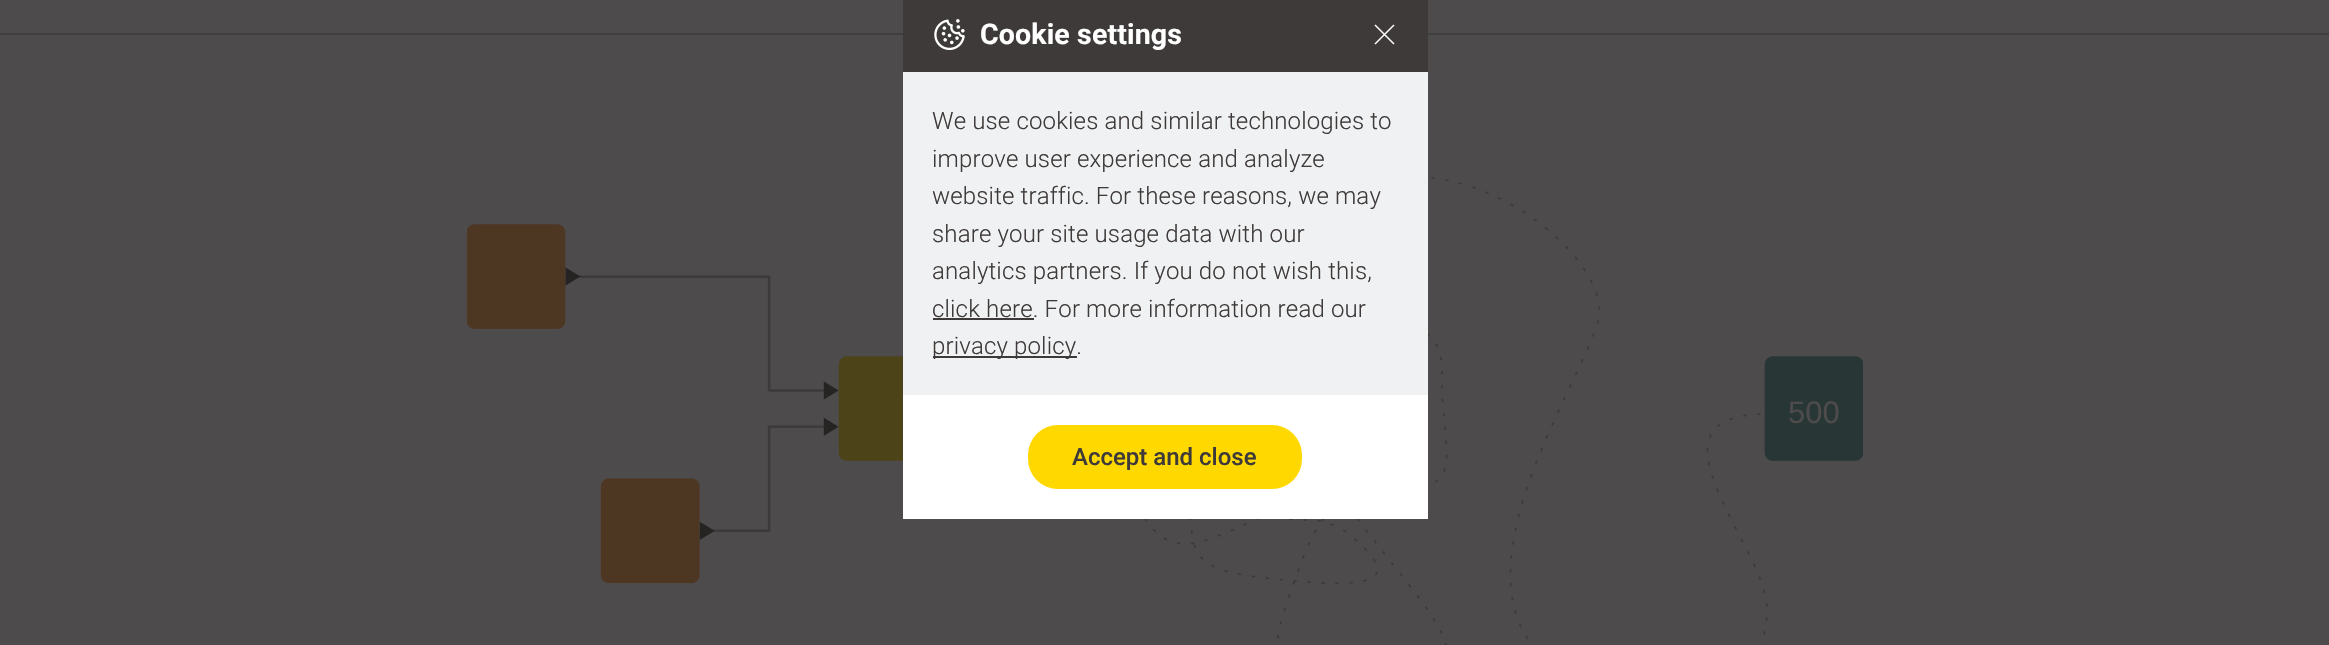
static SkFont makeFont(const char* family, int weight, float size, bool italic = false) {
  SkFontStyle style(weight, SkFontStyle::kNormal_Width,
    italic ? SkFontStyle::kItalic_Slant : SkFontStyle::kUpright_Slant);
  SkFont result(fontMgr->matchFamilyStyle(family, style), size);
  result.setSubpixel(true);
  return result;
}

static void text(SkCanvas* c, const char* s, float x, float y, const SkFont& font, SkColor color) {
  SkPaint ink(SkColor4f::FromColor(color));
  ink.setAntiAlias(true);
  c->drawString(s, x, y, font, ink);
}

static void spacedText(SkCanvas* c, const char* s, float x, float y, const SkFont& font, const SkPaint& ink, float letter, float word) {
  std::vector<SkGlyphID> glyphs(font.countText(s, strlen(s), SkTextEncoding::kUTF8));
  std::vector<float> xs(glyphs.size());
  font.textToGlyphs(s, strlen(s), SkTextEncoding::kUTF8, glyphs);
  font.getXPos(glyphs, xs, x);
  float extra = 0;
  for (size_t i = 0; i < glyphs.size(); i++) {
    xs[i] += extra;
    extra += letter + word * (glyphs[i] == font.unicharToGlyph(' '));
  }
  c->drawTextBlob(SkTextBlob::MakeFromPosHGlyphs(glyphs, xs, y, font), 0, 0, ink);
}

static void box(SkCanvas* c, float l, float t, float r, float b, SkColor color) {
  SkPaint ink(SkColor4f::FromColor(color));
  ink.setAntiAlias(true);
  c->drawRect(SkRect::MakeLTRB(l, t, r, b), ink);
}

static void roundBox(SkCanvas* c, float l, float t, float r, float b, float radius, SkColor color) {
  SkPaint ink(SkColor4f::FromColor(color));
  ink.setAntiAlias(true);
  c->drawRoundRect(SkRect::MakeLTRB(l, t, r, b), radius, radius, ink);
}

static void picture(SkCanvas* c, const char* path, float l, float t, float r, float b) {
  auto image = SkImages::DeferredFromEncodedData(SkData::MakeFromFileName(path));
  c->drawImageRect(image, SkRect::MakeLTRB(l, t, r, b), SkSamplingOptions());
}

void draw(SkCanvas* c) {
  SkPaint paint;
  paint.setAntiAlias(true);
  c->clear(0xff4d4b4b);
  picture(c, "img_02.png", 467, 177, 1863, 645);
  box(c, 903, 395, 1428, 519, 0xffffffff);
  box(c, 0, 33, 2329, 35, 0xff403f40);
  box(c, 903, 0, 1428, 72, 0xff3e3a39);
  picture(c, "img_01.png", 934, 19, 965, 51);
  SkFont face1 = makeFont("Roboto", 700, 28.5f);
  paint.setColor(0xffffffff);
  spacedText(c, "Cookie settings", 980, 44, face1, paint, 0.15f, 0);
  paint.setStyle(SkPaint::kStroke_Style);
  paint.setStrokeWidth(1.5f);
  paint.setStrokeJoin(SkPaint::kRound_Join);
  c->drawPath(SkPathBuilder().moveTo(1375, 44).lineTo(1394, 25).moveTo(1375, 25).lineTo(1394, 44).detach(), paint);
  box(c, 903, 72, 1428, 395, 0xffeff1f2);
  SkFont face2 = makeFont("Roboto", 300, 24);
  paint.setStyle(SkPaint::kFill_Style);
  paint.setColor(0xff3e3a39);
  spacedText(c, "We use cookies and similar technologies to", 932, 129, face2, paint, 0.15f, 0);
  spacedText(c, "improve user experience and analyze", 932, 167, face2, paint, 0.15f, 0);
  spacedText(c, "website traffic. For these reasons, we may", 932, 204, face2, paint, 0.15f, 0);
  spacedText(c, "share your site usage data with our", 932, 242, face2, paint, 0.15f, 0);
  spacedText(c, "analytics partners. If you do not wish this,", 932, 279, face2, paint, 0.15f, 0);
  spacedText(c, "click here. For more information read our", 932, 317, face2, paint, 0.15f, 0);
  box(c, 933, 318, 1034, 320, 0xff3e3a39);
  box(c, 933, 356, 1077, 358, 0xff3e3a39);
  spacedText(c, "privacy policy.", 932, 354, face2, paint, 0.15f, 0);
  roundBox(c, 1028, 425, 1302, 489, 30, 0xffffd800);
  SkFont face3 = makeFont("Roboto", 500, 24);
  text(c, "Accept and close", 1072, 465, face3, 0xff3e3a39);
  SkFont face4 = makeFont("Liberation Sans", 400, 31);
  text(c, "500", 1788, 423, face4, 0xff4d4b4b);
}
